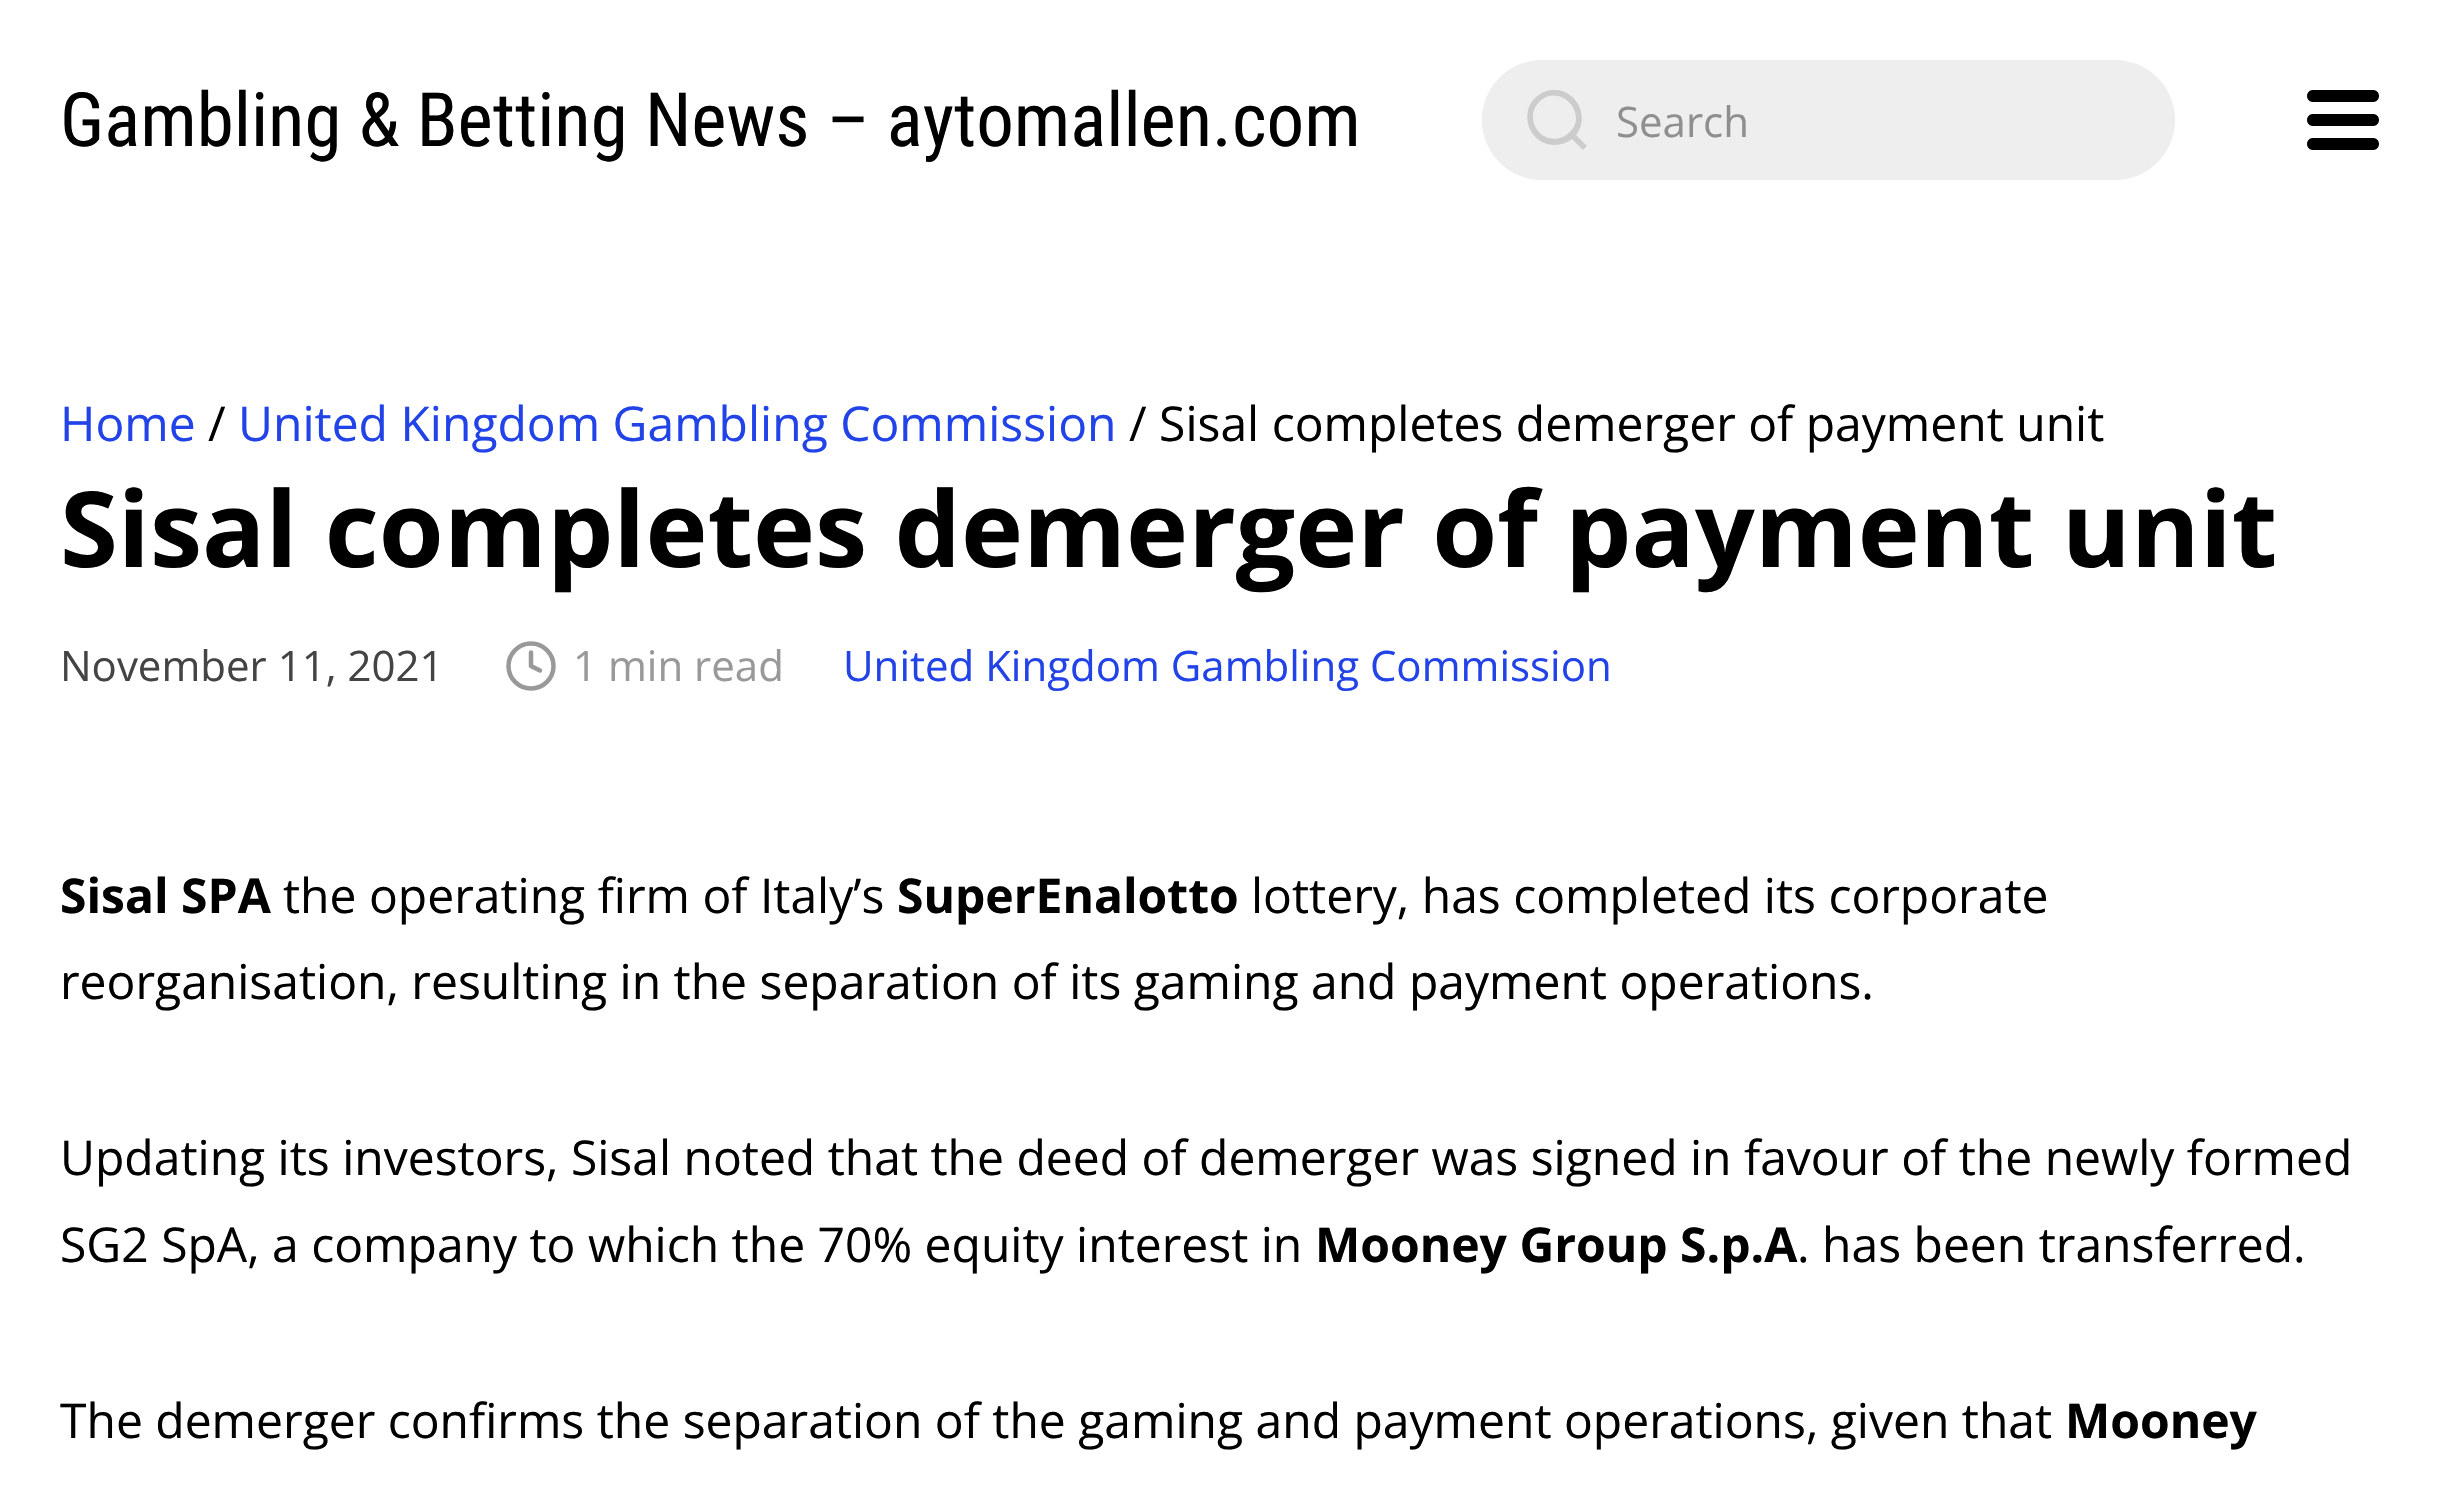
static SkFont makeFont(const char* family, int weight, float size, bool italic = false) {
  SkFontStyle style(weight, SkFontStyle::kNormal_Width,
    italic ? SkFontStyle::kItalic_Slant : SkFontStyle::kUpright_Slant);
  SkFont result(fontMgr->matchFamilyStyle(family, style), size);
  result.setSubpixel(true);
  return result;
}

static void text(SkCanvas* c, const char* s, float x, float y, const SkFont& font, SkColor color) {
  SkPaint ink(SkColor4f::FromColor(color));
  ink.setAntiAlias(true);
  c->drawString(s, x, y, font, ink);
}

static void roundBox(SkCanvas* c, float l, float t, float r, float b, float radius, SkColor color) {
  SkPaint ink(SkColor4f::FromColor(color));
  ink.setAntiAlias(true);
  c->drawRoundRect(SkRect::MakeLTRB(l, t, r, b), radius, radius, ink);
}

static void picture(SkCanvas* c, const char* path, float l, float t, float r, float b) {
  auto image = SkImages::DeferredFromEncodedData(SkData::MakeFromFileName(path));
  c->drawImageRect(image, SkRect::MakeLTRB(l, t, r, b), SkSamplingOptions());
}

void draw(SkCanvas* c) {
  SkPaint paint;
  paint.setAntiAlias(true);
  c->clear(0xffffffff);
  SkFont face1 = makeFont("Roboto Condensed", 400, 75);
  text(c, "Gambling & Betting News – aytomallen.com", 60, 146, face1, 0xff000000);
  roundBox(c, 1482, 60, 2175, 180, 60, 0xffeeeeee);
  c->save();
  c->clipRect(SkRect::MakeLTRB(1527, 90, 1587, 150));
  paint.setColor(0xffcccccc);
  c->drawPath(SkPathBuilder().moveTo(1576, 135).lineTo(1587, 146).lineTo(1583, 150).lineTo(1572, 139).cubicTo(1559, 149, 1541, 146, 1532, 133).cubicTo(1527, 125, 1526, 115, 1529, 107).cubicTo(1532, 100, 1537, 95, 1544, 92).cubicTo(1570, 81, 1593, 113, 1576, 135).close().moveTo(1570, 132).cubicTo(1589, 113, 1559, 82, 1539, 102).cubicTo(1523, 119, 1541, 146, 1563, 137).cubicTo(1565, 136, 1567, 134, 1570, 132).close().detach(), paint);
  c->restore();
  SkFont face2 = makeFont("Open Sans", 400, 42);
  text(c, "Search", 1616, 137, face2, 0xff8f8f8f);
  picture(c, "img_01.png", 2307, 90, 2379, 150);
  SkFont face3 = makeFont("Open Sans", 400, 48);
  text(c, "Home", 60, 441, face3, 0xff2143e8);
  text(c, "/", 208, 441, face3, 0xff000000);
  text(c, "United Kingdom Gambling Commission", 238, 441, face3, 0xff2143e8);
  text(c, "/ Sisal completes demerger of payment unit", 1129, 441, face3, 0xff000000);
  SkFont face4 = makeFont("Open Sans", 700, 105);
  text(c, "Sisal completes demerger of payment unit", 60, 567, face4, 0xff000000);
  text(c, "November 11, 2021", 60, 681, face2, 0xff444444);
  text(c, "1 min read", 573, 681, face2, 0xff999999);
  paint.setStyle(SkPaint::kStroke_Style);
  paint.setStrokeWidth(4.5f);
  paint.setColor(0xff999999);
  c->drawCircle(531, 666, 22.5f, paint);
  paint.setStrokeCap(SkPaint::kRound_Cap);
  paint.setStrokeJoin(SkPaint::kRound_Join);
  c->drawPath(SkPathBuilder().moveTo(531, 652.5f).lineTo(531, 666).lineTo(540, 670.5f).detach(), paint);
  text(c, "United Kingdom Gambling Commission", 843, 681, face2, 0xff2143e8);
  SkFont face5 = makeFont("Open Sans", 700, 48);
  text(c, "Sisal SPA", 60, 913, face5, 0xff000000);
  text(c, "the operating firm of Italy’s", 283, 913, face3, 0xff000000);
  text(c, "SuperEnalotto", 897, 913, face5, 0xff000000);
  text(c, "lottery, has completed its corporate", 1251, 913, face3, 0xff000000);
  text(c, "reorganisation, resulting in the separation of its gaming and payment operations.", 60, 999, face3, 0xff000000);
  text(c, "Updating its investors, Sisal noted that the deed of demerger was signed in favour of the newly formed", 60, 1175, face3, 0xff000000);
  text(c, "SG2 SpA, a company to which the 70% equity interest in", 60, 1262, face3, 0xff000000);
  text(c, "Mooney Group S.p.A", 1315, 1262, face5, 0xff000000);
  text(c, ". has been transferred.", 1797, 1262, face3, 0xff000000);
  text(c, "The demerger confirms the separation of the gaming and payment operations, given that", 60, 1438, face3, 0xff000000);
  text(c, "Mooney", 2065, 1438, face5, 0xff000000);
}
